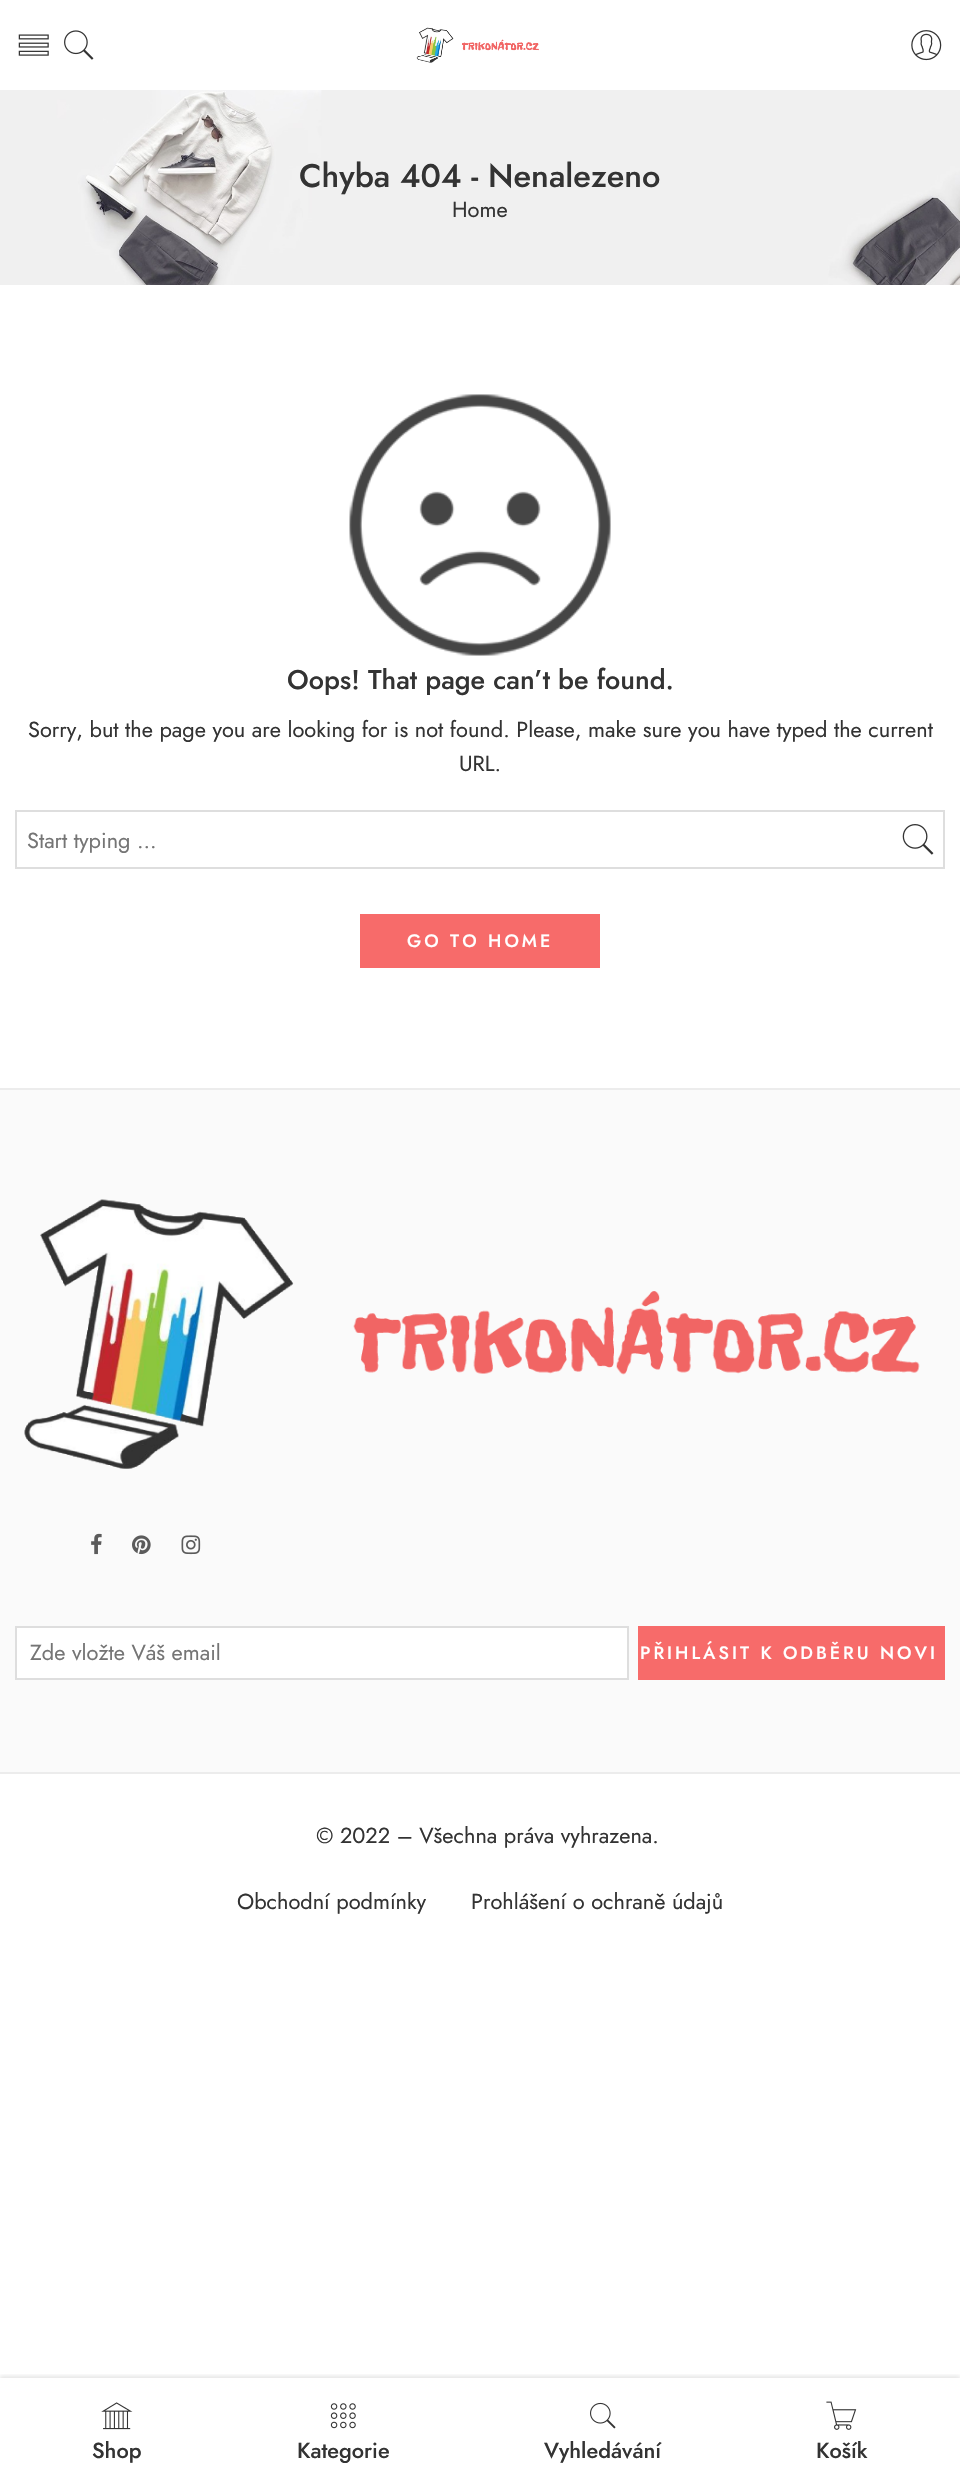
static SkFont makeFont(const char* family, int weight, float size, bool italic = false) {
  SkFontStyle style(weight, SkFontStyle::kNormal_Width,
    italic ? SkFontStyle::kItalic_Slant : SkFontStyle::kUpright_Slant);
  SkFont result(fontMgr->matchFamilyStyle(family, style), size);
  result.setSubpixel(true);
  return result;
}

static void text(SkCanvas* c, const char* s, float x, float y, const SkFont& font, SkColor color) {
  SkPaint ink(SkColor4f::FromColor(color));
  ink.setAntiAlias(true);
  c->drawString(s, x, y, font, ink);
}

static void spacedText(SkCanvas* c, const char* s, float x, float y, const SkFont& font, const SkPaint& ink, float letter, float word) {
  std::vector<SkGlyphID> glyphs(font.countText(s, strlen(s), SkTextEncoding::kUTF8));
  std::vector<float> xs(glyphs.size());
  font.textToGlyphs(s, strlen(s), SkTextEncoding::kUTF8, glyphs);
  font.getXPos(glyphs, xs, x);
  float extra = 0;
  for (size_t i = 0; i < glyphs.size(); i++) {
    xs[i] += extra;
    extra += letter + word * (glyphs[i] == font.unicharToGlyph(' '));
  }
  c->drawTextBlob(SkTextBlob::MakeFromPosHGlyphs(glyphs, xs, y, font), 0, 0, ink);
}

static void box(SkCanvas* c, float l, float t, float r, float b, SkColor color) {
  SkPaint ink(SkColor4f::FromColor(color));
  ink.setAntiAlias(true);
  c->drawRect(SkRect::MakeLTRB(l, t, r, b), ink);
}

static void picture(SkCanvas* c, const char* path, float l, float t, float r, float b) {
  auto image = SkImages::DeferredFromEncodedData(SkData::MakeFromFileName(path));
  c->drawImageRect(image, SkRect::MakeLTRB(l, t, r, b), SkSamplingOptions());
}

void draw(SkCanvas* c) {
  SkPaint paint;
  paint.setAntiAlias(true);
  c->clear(0xffffffff);
  picture(c, "img_01.png", 18, 34, 49, 56);
  picture(c, "img_02.png", 64, 30, 94, 60);
  picture(c, "img_03.png", 416, 27, 539, 63);
  picture(c, "img_04.png", 911, 30, 942, 61);
  picture(c, "img_05.png", 0, 90, 960, 285);
  SkFont face1 = makeFont("Jost", 500, 32.6f);
  text(c, "Chyba 404 - Nenalezeno", 299, 187, face1, 0xff333333);
  SkFont face2 = makeFont("Jost", 400, 21.75f);
  text(c, "Home", 452, 217, face2, 0xff333333);
  picture(c, "img_06.png", 349, 394, 611, 656);
  SkFont face3 = makeFont("Jost", 500, 27);
  text(c, "Oops! That page can’t be found.", 287, 689, face3, 0xff333333);
  text(c, "Sorry, but the page you are looking for is not found. Please, make sure you have typed the current", 28, 737, face2, 0xff333333);
  text(c, "URL.", 459, 771, face2, 0xff333333);
  paint.setStyle(SkPaint::kStroke_Style);
  paint.setStrokeWidth(2);
  paint.setColor(0xffdedede);
  c->drawRect(SkRect::MakeLTRB(16, 811, 944, 868), paint);
  text(c, "Start typing ...", 27, 848, face2, 0xff757575);
  picture(c, "img_07.png", 902, 824, 934, 855);
  box(c, 360, 914, 600, 968, 0xfff76b6a);
  SkFont face4 = makeFont("Jost", 500, 18);
  paint.setStyle(SkPaint::kFill_Style);
  paint.setColor(0xffffffff);
  spacedText(c, "GO TO HOME", 407, 947, face4, paint, 3, 0);
  box(c, 0, 1090, 960, 1772, 0xfffafafa);
  box(c, 0, 1088, 960, 1090, 0xffececec);
  picture(c, "img_08.png", 24, 1199, 920, 1469);
  picture(c, "img_09.png", 91, 1533, 102, 1555);
  picture(c, "img_10.png", 132, 1535, 151, 1555);
  picture(c, "img_11.png", 181, 1535, 201, 1555);
  c->drawRect(SkRect::MakeLTRB(16, 1627, 628, 1679), paint);
  paint.setStyle(SkPaint::kStroke_Style);
  paint.setColor(0xffdedede);
  c->drawRect(SkRect::MakeLTRB(16, 1627, 628, 1679), paint);
  text(c, "Zde vložte Váš email", 30, 1660, face2, 0xff757575);
  box(c, 638, 1626, 945, 1680, 0xfff76b6a);
  paint.setStyle(SkPaint::kFill_Style);
  paint.setColor(0xffffffff);
  spacedText(c, "PŘIHLÁSIT K ODBĚRU NOVI", 640, 1659, face4, paint, 3, 0);
  box(c, 0, 1772, 960, 1774, 0xffececec);
  text(c, "© 2022 – Všechna práva vyhrazena.", 316, 1843, face2, 0xff333333);
  text(c, "Obchodní podmínky", 237, 1909, face2, 0xff333333);
  text(c, "Prohlášení o ochraně údajů", 471, 1909, face2, 0xff333333);
  c->save();
  c->clipRect(SkRect::MakeLTRB(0, 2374, 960, 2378));
  paint.setColor(0x1a000000);
  paint.setMaskFilter(SkMaskFilter::MakeBlur(kNormal_SkBlurStyle, 2));
  c->drawRect(SkRect::MakeLTRB(0, 2376, 960, 2481), paint);
  paint.setMaskFilter(nullptr);
  c->restore();
  picture(c, "img_12.png", 101, 2402, 133, 2430);
  SkFont face5 = makeFont("Jost", 500, 21.75f);
  text(c, "Shop", 92, 2458, face5, 0xff333333);
  picture(c, "img_13.png", 330, 2403, 356, 2429);
  text(c, "Kategorie", 297, 2458, face5, 0xff333333);
  picture(c, "img_14.png", 590, 2402, 616, 2429);
  text(c, "Vyhledávání", 544, 2458, face5, 0xff333333);
  picture(c, "img_15.png", 826, 2401, 857, 2430);
  text(c, "Košík", 816, 2458, face5, 0xff333333);
}
